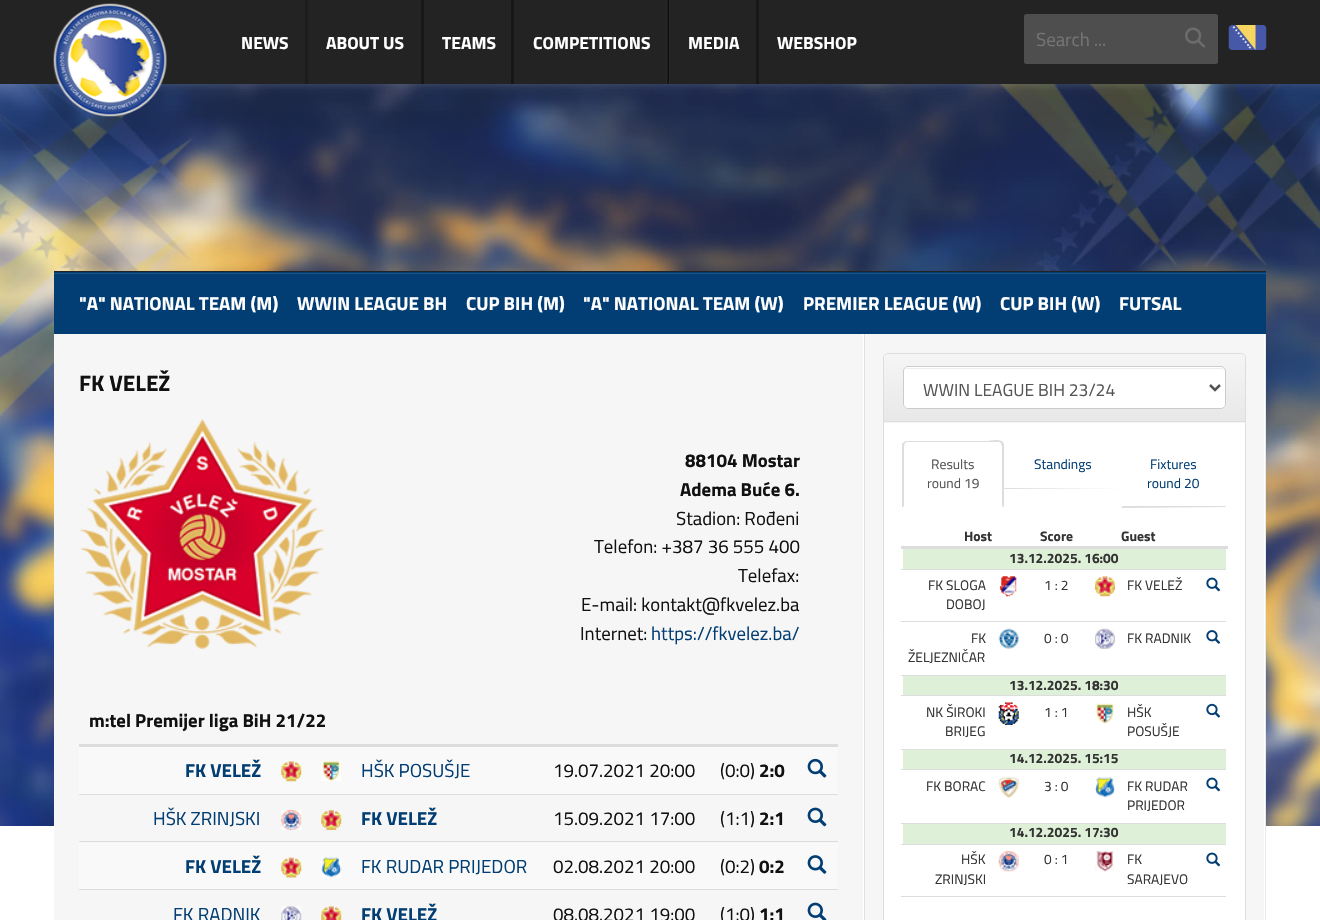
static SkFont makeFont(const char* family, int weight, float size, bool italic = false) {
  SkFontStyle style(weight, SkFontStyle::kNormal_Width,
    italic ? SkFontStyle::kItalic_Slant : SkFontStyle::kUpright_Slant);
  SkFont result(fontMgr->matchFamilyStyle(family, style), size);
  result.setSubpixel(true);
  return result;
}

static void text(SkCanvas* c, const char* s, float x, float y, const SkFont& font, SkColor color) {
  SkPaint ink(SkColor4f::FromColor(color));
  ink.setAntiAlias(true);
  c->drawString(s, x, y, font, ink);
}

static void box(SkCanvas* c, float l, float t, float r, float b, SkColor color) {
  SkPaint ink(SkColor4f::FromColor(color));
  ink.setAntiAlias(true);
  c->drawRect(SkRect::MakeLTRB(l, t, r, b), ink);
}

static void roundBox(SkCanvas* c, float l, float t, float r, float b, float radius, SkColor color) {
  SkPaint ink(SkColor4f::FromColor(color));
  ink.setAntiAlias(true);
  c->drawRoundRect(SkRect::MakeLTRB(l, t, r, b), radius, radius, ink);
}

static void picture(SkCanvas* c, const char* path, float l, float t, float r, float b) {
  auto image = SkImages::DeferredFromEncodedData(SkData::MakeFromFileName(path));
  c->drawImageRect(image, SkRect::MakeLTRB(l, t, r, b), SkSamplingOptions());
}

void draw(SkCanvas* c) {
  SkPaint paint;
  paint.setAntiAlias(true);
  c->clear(0xffffffff);
  box(c, 0, 0, 1320, 84, 0xff232323);
  picture(c, "img_05.png", 0, 84, 1320, 826);
  picture(c, "img_01.png", 53, 3, 167, 117);
  box(c, 305, 0, 308, 84, 0xff1c1c1c);
  SkFont face1 = makeFont("Titillium Web", 700, 17.5f);
  text(c, "NEWS", 241, 49, face1, 0xffffffff);
  box(c, 421, 0, 424, 84, 0xff171717);
  text(c, "ABOUT US", 326, 49, face1, 0xffffffff);
  box(c, 511, 0, 514, 84, 0xff171717);
  text(c, "TEAMS", 442, 49, face1, 0xffffffff);
  picture(c, "img_02.png", 666, 0, 670, 84);
  text(c, "COMPETITIONS", 533, 49, face1, 0xffffffff);
  box(c, 756, 0, 759, 84, 0xff171717);
  text(c, "MEDIA", 688, 49, face1, 0xffffffff);
  text(c, "WEBSHOP", 777, 49, face1, 0xffffffff);
  roundBox(c, 1024, 14, 1218, 64, 2.5f, 0xff4e4e4e);
  SkFont face2 = makeFont("Titillium Web", 400, 18.75f);
  text(c, "Search ...", 1036, 46, face2, 0xff757575);
  picture(c, "img_03.png", 1185, 27, 1205, 48);
  picture(c, "img_04.png", 1228, 25, 1267, 50);
  box(c, 54, 272, 1266, 334, 0xff023e73);
  box(c, 54, 273, 1266, 274, 0xff1b5181);
  box(c, 54, 271, 1266, 272, 0xff232323);
  SkFont face3 = makeFont("Titillium Web", 700, 18.75f);
  text(c, "\"A\" NATIONAL TEAM (M)", 79, 310, face3, 0xffffffff);
  text(c, "WWIN LEAGUE BH", 297, 310, face3, 0xffffffff);
  text(c, "CUP BIH (M)", 466, 310, face3, 0xffffffff);
  text(c, "\"A\" NATIONAL TEAM (W)", 583, 310, face3, 0xffffffff);
  text(c, "PREMIER LEAGUE (W)", 803, 310, face3, 0xffffffff);
  text(c, "CUP BIH (W)", 1000, 310, face3, 0xffffffff);
  text(c, "FUTSAL", 1119, 310, face3, 0xffffffff);
  box(c, 54, 334, 1264, 920, 0xfff6f6f6);
  SkFont face4 = makeFont("Titillium Web", 700, 22.5f);
  text(c, "FK VELEŽ", 79, 391, face4, 0xff111111);
  picture(c, "img_06.png", 80, 418, 324, 649);
  text(c, "88104 Mostar", 685, 467, face3, 0xff111111);
  text(c, "Adema Buće 6.", 680, 496, face3, 0xff111111);
  text(c, "Stadion: Rođeni", 676, 525, face2, 0xff111111);
  text(c, "Telefon: +387 36 555 400", 594, 553, face2, 0xff111111);
  text(c, "Telefax:", 738, 582, face2, 0xff111111);
  text(c, "E-mail: kontakt@fkvelez.ba", 581, 611, face2, 0xff111111);
  text(c, "Internet:", 580, 640, face2, 0xff111111);
  text(c, "https://fkvelez.ba/", 651, 640, face2, 0xff023e73);
  box(c, 79, 744, 838, 747, 0xffdddddd);
  text(c, "m:tel Premijer liga BiH 21/22", 89, 727, face3, 0xff111111);
  box(c, 79, 747, 838, 794, 0xfff9f9f9);
  text(c, "FK VELEŽ", 185, 777, face3, 0xff023e73);
  picture(c, "img_07.png", 281, 761, 302, 782);
  picture(c, "img_08.png", 321, 761, 341, 782);
  text(c, "HŠK POSUŠJE", 361, 777, face2, 0xff023e73);
  text(c, "19.07.2021 20:00", 553, 777, face2, 0xff111111);
  text(c, "(0:0)", 720, 777, face2, 0xff111111);
  text(c, "2:0", 759, 777, face3, 0xff111111);
  picture(c, "img_09.png", 807, 758, 827, 778);
  box(c, 79, 794, 838, 795, 0xffdddddd);
  picture(c, "img_10.png", 807, 807, 827, 827);
  text(c, "HŠK ZRINJSKI", 153, 825, face2, 0xff023e73);
  picture(c, "img_11.png", 281, 810, 302, 830);
  picture(c, "img_12.png", 321, 810, 342, 830);
  text(c, "FK VELEŽ", 361, 825, face3, 0xff023e73);
  text(c, "15.09.2021 17:00", 553, 825, face2, 0xff111111);
  text(c, "(1:1)", 720, 825, face2, 0xff111111);
  text(c, "2:1", 759, 825, face3, 0xff111111);
  box(c, 79, 843, 838, 889, 0xfff9f9f9);
  box(c, 79, 841, 838, 842, 0xffdddddd);
  picture(c, "img_13.png", 807, 855, 827, 874);
  text(c, "FK VELEŽ", 185, 873, face3, 0xff023e73);
  picture(c, "img_14.png", 281, 857, 302, 878);
  picture(c, "img_15.png", 321, 857, 342, 878);
  text(c, "FK RUDAR PRIJEDOR", 361, 873, face2, 0xff023e73);
  text(c, "02.08.2021 20:00", 553, 873, face2, 0xff111111);
  text(c, "(0:2)", 720, 873, face2, 0xff111111);
  text(c, "0:2", 759, 873, face3, 0xff111111);
  box(c, 79, 889, 838, 890, 0xffdddddd);
  picture(c, "img_16.png", 807, 902, 827, 920);
  text(c, "FK RADNIK", 173, 921, face2, 0xff023e73);
  picture(c, "img_17.png", 281, 906, 302, 920);
  picture(c, "img_18.png", 321, 906, 342, 920);
  text(c, "FK VELEŽ", 361, 921, face3, 0xff023e73);
  text(c, "08.08.2021 19:00", 553, 921, face2, 0xff111111);
  text(c, "(1:0)", 720, 921, face2, 0xff111111);
  text(c, "1:1", 759, 921, face3, 0xff111111);
  box(c, 1264, 334, 1265, 826, 0xffffffff);
  box(c, 864, 334, 865, 920, 0xffe1e1e1);
  box(c, 1265, 334, 1266, 920, 0xffe7e8e8);
  box(c, 863, 334, 864, 920, 0xffffffff);
  paint.setColor(0xffffffff);
  c->drawRoundRect(SkRect::MakeLTRB(883.5f, 353.5f, 1245.5f, 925.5f), 4.5f, 4.5f, paint);
  paint.setStyle(SkPaint::kStroke_Style);
  paint.setStrokeWidth(1);
  paint.setColor(0xffdddddd);
  c->drawRoundRect(SkRect::MakeLTRB(883.5f, 353.5f, 1245.5f, 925.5f), 4.5f, 4.5f, paint);
  paint.setStyle(SkPaint::kFill_Style);
  paint.setColor(0xfff5f5f5);
  c->drawPath(SkPathBuilder().moveTo(888, 354).lineTo(1241, 354).cubicTo(1243, 354, 1245, 356, 1245, 358).lineTo(1245, 423).lineTo(884, 423).lineTo(884, 358).cubicTo(884, 356, 886, 354, 888, 354).close().detach(), paint);
  {
    const SkColor colors[] = {0xfff5f5f5, 0xffe8e8e8};
    const float stops[] = {0, 1};
    const SkPoint ends[] = {{1064, 354}, {1064, 421}};
    paint.setShader(SkGradientShader::MakeLinear(ends, colors, stops, 2, SkTileMode::kClamp));
    paint.setAlpha(255);
  }
  c->drawPath(SkPathBuilder().moveTo(888, 354).lineTo(1241, 354).cubicTo(1243, 354, 1245, 356, 1245, 358).lineTo(1245, 421).lineTo(884, 421).lineTo(884, 358).cubicTo(884, 356, 886, 354, 888, 354).close().detach(), paint);
  box(c, 884, 421, 1245, 422, 0xffdddddd);
  roundBox(c, 903, 366, 1226, 409, 5, 0xffffffff);
  paint.setShader(nullptr);
  paint.setColor(0xffececec);
  c->drawPath(SkPathBuilder().moveTo(908, 369).lineTo(1221, 369).cubicTo(1223, 369, 1225, 370, 1225, 372).cubicTo(1225, 370, 1223, 368, 1221, 368).lineTo(908, 368).cubicTo(906, 368, 905, 369, 904, 370).cubicTo(905, 369, 906, 369, 908, 369).close().detach(), paint);
  paint.setStyle(SkPaint::kStroke_Style);
  paint.setColor(0xffcccccc);
  c->drawRoundRect(SkRect::MakeLTRB(903.5f, 366.5f, 1225.5f, 408.5f), 4.5f, 4.5f, paint);
  paint.setStrokeWidth(2.5f);
  paint.setColor(0xff555555);
  c->drawPath(SkPathBuilder().moveTo(1210, 385).lineTo(1215, 390).lineTo(1220, 385).detach(), paint);
  SkFont face5 = makeFont("Titillium Web", 400, 17.5f);
  text(c, "WWIN LEAGUE BIH 23/24", 923, 396, face5, 0xff555555);
  paint.setStyle(SkPaint::kFill_Style);
  paint.setColor(0xffdddddd);
  c->drawPath(SkPathBuilder().moveTo(908, 442).cubicTo(906, 442, 905, 443, 905, 443).lineTo(904, 442).lineTo(906, 441).lineTo(985, 441).cubicTo(991, 441, 998, 438, 1003, 442).lineTo(1001, 444).cubicTo(1001, 443, 1000, 442, 999, 442).close().detach(), paint);
  c->drawPath(SkPathBuilder().moveTo(1003, 442).lineTo(1004, 444).lineTo(1004, 508).lineTo(1002, 506).lineTo(1002, 446).lineTo(1001, 444).close().detach(), paint);
  paint.setColor(0xffffffff);
  c->drawPath(SkPathBuilder().moveTo(1004, 508).lineTo(1002, 506).lineTo(904, 506).lineTo(902, 508).close().detach(), paint);
  paint.setColor(0xffdddddd);
  c->drawPath(SkPathBuilder().moveTo(902, 508).lineTo(902, 444).lineTo(904, 442).lineTo(905, 443).lineTo(904, 446).lineTo(904, 506).close().detach(), paint);
  SkFont face6 = makeFont("Titillium Web", 400, 13.75f);
  text(c, "Results", 931, 469, face6, 0xff555555);
  text(c, "round 19", 927, 488, face6, 0xff555555);
  c->drawPath(SkPathBuilder().moveTo(1004, 489).lineTo(1005, 488).lineTo(1120, 488).lineTo(1121, 488).close().detach(), paint);
  text(c, "Standings", 1034, 469, face6, 0xff023e73);
  c->drawPath(SkPathBuilder().moveTo(1226, 507).lineTo(1121, 508).lineTo(1123, 506).lineTo(1225, 506).close().detach(), paint);
  text(c, "Fixtures", 1150, 469, face6, 0xff023e73);
  text(c, "round 20", 1147, 488, face6, 0xff023e73);
  SkFont face7 = makeFont("Titillium Web", 700, 13.75f);
  text(c, "Host", 964, 541, face7, 0xff333333);
  text(c, "Score", 1040, 541, face7, 0xff333333);
  text(c, "Guest", 1121, 541, face7, 0xff333333);
  box(c, 901, 546, 1228, 549, 0xffdddddd);
  box(c, 903, 549, 1226, 569, 0xffdff0d8);
  text(c, "13.12.2025. 16:00", 1009, 563, face7, 0xff333333);
  box(c, 901, 569, 1226, 570, 0xffdddddd);
  picture(c, "img_19.png", 1206, 577, 1220, 592);
  text(c, "FK SLOGA", 928, 590, face6, 0xff333333);
  text(c, "DOBOJ", 946, 609, face6, 0xff333333);
  picture(c, "img_20.png", 999, 576, 1017, 597);
  text(c, "1 : 2", 1044, 590, face6, 0xff333333);
  picture(c, "img_21.png", 1095, 576, 1115, 597);
  text(c, "FK VELEŽ", 1127, 590, face6, 0xff333333);
  box(c, 901, 621, 1226, 622, 0xffdddddd);
  picture(c, "img_22.png", 1206, 630, 1221, 644);
  text(c, "FK", 971, 643, face6, 0xff333333);
  text(c, "ŽELJEZNIČAR", 908, 662, face6, 0xff333333);
  picture(c, "img_23.png", 998, 628, 1019, 649);
  text(c, "0 : 0", 1044, 643, face6, 0xff333333);
  picture(c, "img_24.png", 1095, 628, 1115, 649);
  text(c, "FK RADNIK", 1127, 643, face6, 0xff333333);
  box(c, 903, 676, 1226, 695, 0xffdff0d8);
  box(c, 901, 675, 1226, 676, 0xffdddddd);
  text(c, "13.12.2025. 18:30", 1009, 690, face7, 0xff333333);
  box(c, 901, 695, 1226, 696, 0xffdddddd);
  picture(c, "img_25.png", 1206, 703, 1221, 718);
  text(c, "NK ŠIROKI", 926, 717, face6, 0xff333333);
  text(c, "BRIJEG", 945, 736, face6, 0xff333333);
  picture(c, "img_26.png", 998, 702, 1019, 725);
  text(c, "1 : 1", 1044, 717, face6, 0xff333333);
  picture(c, "img_27.png", 1096, 703, 1114, 724);
  text(c, "HŠK", 1127, 717, face6, 0xff333333);
  text(c, "POSUŠJE", 1127, 736, face6, 0xff333333);
  box(c, 903, 750, 1226, 769, 0xffdff0d8);
  box(c, 901, 749, 1226, 750, 0xffdddddd);
  text(c, "14.12.2025. 15:15", 1009, 763, face7, 0xff333333);
  box(c, 901, 769, 1226, 770, 0xffdddddd);
  picture(c, "img_19.png", 1206, 777, 1220, 792);
  text(c, "FK BORAC", 926, 791, face6, 0xff333333);
  picture(c, "img_28.png", 998, 777, 1019, 798);
  text(c, "3 : 0", 1044, 791, face6, 0xff333333);
  picture(c, "img_29.png", 1095, 777, 1115, 798);
  text(c, "FK RUDAR", 1127, 791, face6, 0xff333333);
  text(c, "PRIJEDOR", 1127, 810, face6, 0xff333333);
  box(c, 903, 824, 1226, 844, 0xffdff0d8);
  box(c, 901, 823, 1226, 824, 0xffdddddd);
  text(c, "14.12.2025. 17:30", 1009, 837, face7, 0xff333333);
  box(c, 901, 844, 1226, 845, 0xffdddddd);
  picture(c, "img_19.png", 1206, 852, 1220, 867);
  text(c, "HŠK", 961, 864, face6, 0xff333333);
  text(c, "ZRINJSKI", 935, 884, face6, 0xff333333);
  picture(c, "img_30.png", 998, 851, 1019, 872);
  text(c, "0 : 1", 1044, 864, face6, 0xff333333);
  picture(c, "img_31.png", 1095, 851, 1115, 872);
  text(c, "FK", 1127, 864, face6, 0xff333333);
  text(c, "SARAJEVO", 1127, 884, face6, 0xff333333);
  box(c, 901, 896, 1226, 897, 0xffdddddd);
}
